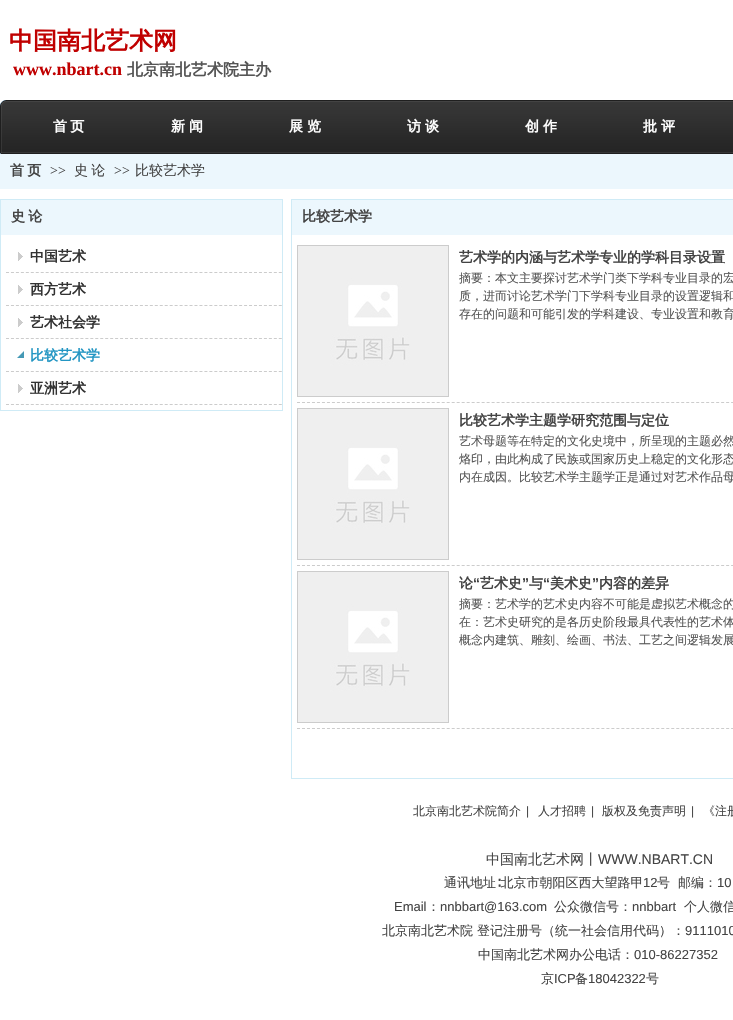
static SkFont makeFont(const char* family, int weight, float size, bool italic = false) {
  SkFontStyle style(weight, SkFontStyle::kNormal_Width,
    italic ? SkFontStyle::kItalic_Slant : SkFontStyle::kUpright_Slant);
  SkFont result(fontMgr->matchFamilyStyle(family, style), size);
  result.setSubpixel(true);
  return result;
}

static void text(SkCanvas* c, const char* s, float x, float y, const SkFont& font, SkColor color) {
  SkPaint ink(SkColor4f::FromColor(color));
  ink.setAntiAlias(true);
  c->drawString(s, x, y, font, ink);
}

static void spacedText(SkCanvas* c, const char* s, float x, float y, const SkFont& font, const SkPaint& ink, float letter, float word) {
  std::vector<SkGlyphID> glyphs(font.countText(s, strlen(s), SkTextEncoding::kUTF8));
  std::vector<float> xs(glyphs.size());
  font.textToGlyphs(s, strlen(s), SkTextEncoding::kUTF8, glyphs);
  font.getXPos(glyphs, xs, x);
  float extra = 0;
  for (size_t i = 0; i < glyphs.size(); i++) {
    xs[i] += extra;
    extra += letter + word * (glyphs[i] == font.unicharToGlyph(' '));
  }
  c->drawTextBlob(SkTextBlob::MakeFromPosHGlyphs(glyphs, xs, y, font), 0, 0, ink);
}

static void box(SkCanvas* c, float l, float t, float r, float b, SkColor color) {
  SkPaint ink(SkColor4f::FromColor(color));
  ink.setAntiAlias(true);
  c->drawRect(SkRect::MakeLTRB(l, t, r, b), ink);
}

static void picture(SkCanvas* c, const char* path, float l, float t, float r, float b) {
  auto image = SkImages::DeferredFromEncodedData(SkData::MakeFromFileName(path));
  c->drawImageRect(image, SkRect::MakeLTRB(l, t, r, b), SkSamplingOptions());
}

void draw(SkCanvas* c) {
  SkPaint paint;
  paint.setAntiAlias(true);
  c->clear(0xffffffff);
  SkFont face1 = makeFont("WenQuanYi Zen Hei", 700, 24);
  text(c, "中国南北艺术网", 9, 49, face1, 0xffc00000);
  SkFont face2 = makeFont("Liberation Serif", 700, 18);
  text(c, "www.nbart.cn", 13, 75, face2, 0xffc00000);
  SkFont face3 = makeFont("WenQuanYi Zen Hei", 700, 16);
  text(c, "北京南北艺术院主办", 127, 75, face3, 0xff555555);
  picture(c, "img_01.png", 0, 100, 10, 154);
  picture(c, "img_02.png", 10, 100, 733, 154);
  SkFont face4 = makeFont("WenQuanYi Zen Hei", 700, 14);
  paint.setColor(0xffffffff);
  spacedText(c, "首 页", 53, 131, face4, paint, 0, -1);
  text(c, "新", 171, 131, face4, 0xffffffff);
  text(c, "闻", 189, 131, face4, 0xffffffff);
  text(c, "展", 289, 131, face4, 0xffffffff);
  text(c, "览", 307, 131, face4, 0xffffffff);
  text(c, "访", 407, 131, face4, 0xffffffff);
  text(c, "谈", 425, 131, face4, 0xffffffff);
  text(c, "创", 525, 131, face4, 0xffffffff);
  text(c, "作", 543, 131, face4, 0xffffffff);
  text(c, "批", 643, 131, face4, 0xffffffff);
  text(c, "评", 661, 131, face4, 0xffffffff);
  box(c, 0, 154, 733, 189, 0xffecf7fd);
  paint.setColor(0xff444444);
  spacedText(c, "首 页", 10, 175, face4, paint, 0, -1);
  SkFont face5 = makeFont("Liberation Serif", 400, 14);
  text(c, ">>", 50, 175, face5, 0xff444444);
  SkFont face6 = makeFont("WenQuanYi Zen Hei", 500, 14);
  spacedText(c, "史 论", 74, 175, face6, paint, 0, -1);
  text(c, ">>", 114, 175, face5, 0xff444444);
  text(c, "比较艺术学", 135, 175, face6, 0xff444444);
  paint.setStyle(SkPaint::kStroke_Style);
  paint.setStrokeWidth(1);
  paint.setColor(0xffcfebf6);
  c->drawRect(SkRect::MakeLTRB(0.5f, 199.5f, 282.5f, 410.5f), paint);
  box(c, 1, 200, 282, 235, 0xffecf7fd);
  paint.setStyle(SkPaint::kFill_Style);
  paint.setColor(0xff444444);
  spacedText(c, "史 论", 11, 221, face4, paint, 0, -1);
  c->save();
  c->clipRect(SkRect::MakeLTRB(6, 240, 282, 273));
  paint.setStyle(SkPaint::kStroke_Style);
  paint.setColor(0xffcccccc);
  paint.setPathEffect(SkDashPathEffect::Make({{3, 1.96f}}, 0));
  c->drawPath(SkPathBuilder().moveTo(6, 272.5f).lineTo(287, 272.5f).detach(), paint);
  paint.setPathEffect(nullptr);
  c->restore();
  picture(c, "img_03.png", 18, 252, 23, 261);
  text(c, "中国艺术", 30, 261, face4, 0xff333333);
  c->save();
  c->clipRect(SkRect::MakeLTRB(6, 273, 282, 306));
  paint.setPathEffect(SkDashPathEffect::Make({{3, 1.96f}}, 0));
  c->drawPath(SkPathBuilder().moveTo(6, 305.5f).lineTo(287, 305.5f).detach(), paint);
  paint.setPathEffect(nullptr);
  c->restore();
  picture(c, "img_03.png", 18, 285, 23, 294);
  text(c, "西方艺术", 30, 294, face4, 0xff333333);
  c->save();
  c->clipRect(SkRect::MakeLTRB(6, 306, 282, 339));
  paint.setPathEffect(SkDashPathEffect::Make({{3, 1.96f}}, 0));
  c->drawPath(SkPathBuilder().moveTo(6, 338.5f).lineTo(287, 338.5f).detach(), paint);
  paint.setPathEffect(nullptr);
  c->restore();
  picture(c, "img_03.png", 18, 318, 23, 327);
  text(c, "艺术社会学", 30, 327, face4, 0xff333333);
  c->save();
  c->clipRect(SkRect::MakeLTRB(6, 339, 282, 372));
  paint.setPathEffect(SkDashPathEffect::Make({{3, 1.96f}}, 0));
  c->drawPath(SkPathBuilder().moveTo(6, 371.5f).lineTo(287, 371.5f).detach(), paint);
  paint.setPathEffect(nullptr);
  c->restore();
  picture(c, "img_04.png", 17, 351, 24, 358);
  text(c, "比较艺术学", 30, 360, face4, 0xff2396c3);
  c->save();
  c->clipRect(SkRect::MakeLTRB(6, 372, 282, 405));
  paint.setPathEffect(SkDashPathEffect::Make({{3, 1.96f}}, 0));
  c->drawPath(SkPathBuilder().moveTo(6, 404.5f).lineTo(287, 404.5f).detach(), paint);
  paint.setPathEffect(nullptr);
  c->restore();
  picture(c, "img_03.png", 18, 384, 23, 393);
  text(c, "亚洲艺术", 30, 393, face4, 0xff333333);
  paint.setColor(0xffcfebf6);
  c->drawRect(SkRect::MakeLTRB(291.5f, 199.5f, 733.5f, 778.5f), paint);
  box(c, 292, 200, 733, 235, 0xffecf7fd);
  text(c, "比较艺术学", 302, 221, face4, 0xff444444);
  paint.setColor(0xffcccccc);
  paint.setPathEffect(SkDashPathEffect::Make({{3, 1.99f}}, 0));
  c->drawPath(SkPathBuilder().moveTo(297, 402.5f).lineTo(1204, 402.5f).detach(), paint);
  paint.setPathEffect(nullptr);
  c->drawRect(SkRect::MakeLTRB(297.5f, 245.5f, 448.5f, 396.5f), paint);
  picture(c, "img_05.png", 298, 246, 448, 396);
  text(c, "艺术学的内涵与艺术学专业的学科目录设置", 459, 262, face4, 0xff444444);
  SkFont face7 = makeFont("WenQuanYi Zen Hei", 500, 12);
  text(c, "摘要：本文主要探讨艺术学门类下学科专业目录的宏", 459, 282, face7, 0xff555555);
  text(c, "质，进而讨论艺术学门下学科专业目录的设置逻辑和", 459, 300, face7, 0xff555555);
  text(c, "存在的问题和可能引发的学科建设、专业设置和教育", 459, 318, face7, 0xff555555);
  paint.setPathEffect(SkDashPathEffect::Make({{3, 1.99f}}, 0));
  c->drawPath(SkPathBuilder().moveTo(297, 565.5f).lineTo(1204, 565.5f).detach(), paint);
  paint.setPathEffect(nullptr);
  c->drawRect(SkRect::MakeLTRB(297.5f, 408.5f, 448.5f, 559.5f), paint);
  picture(c, "img_05.png", 298, 409, 448, 559);
  text(c, "比较艺术学主题学研究范围与定位", 459, 425, face4, 0xff444444);
  text(c, "艺术母题等在特定的文化史境中，所呈现的主题必然", 459, 445, face7, 0xff555555);
  text(c, "烙印，由此构成了民族或国家历史上稳定的文化形态", 459, 463, face7, 0xff555555);
  text(c, "内在成因。比较艺术学主题学正是通过对艺术作品母", 459, 481, face7, 0xff555555);
  paint.setPathEffect(SkDashPathEffect::Make({{3, 1.99f}}, 0));
  c->drawPath(SkPathBuilder().moveTo(297, 728.5f).lineTo(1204, 728.5f).detach(), paint);
  paint.setPathEffect(nullptr);
  c->drawRect(SkRect::MakeLTRB(297.5f, 571.5f, 448.5f, 722.5f), paint);
  picture(c, "img_05.png", 298, 572, 448, 722);
  text(c, "论", 459, 588, face4, 0xff444444);
  SkFont face8 = makeFont("Liberation Sans", 700, 14);
  text(c, "“", 473, 588, face8, 0xff444444);
  text(c, "艺术史", 480, 588, face4, 0xff444444);
  text(c, "”", 522, 588, face8, 0xff444444);
  text(c, "与", 529, 588, face4, 0xff444444);
  text(c, "“", 543, 588, face8, 0xff444444);
  text(c, "美术史", 550, 588, face4, 0xff444444);
  text(c, "”", 592, 588, face8, 0xff444444);
  text(c, "内容的差异", 599, 588, face4, 0xff444444);
  text(c, "摘要：艺术学的艺术史内容不可能是虚拟艺术概念的", 459, 608, face7, 0xff555555);
  text(c, "在：艺术史研究的是各历史阶段最具代表性的艺术体", 459, 626, face7, 0xff555555);
  text(c, "概念内建筑、雕刻、绘画、书法、工艺之间逻辑发展", 459, 644, face7, 0xff555555);
  text(c, "北京南北艺术院简介", 413, 815, face7, 0xff444444);
  SkFont face9 = makeFont("Liberation Sans", 400, 12);
  text(c, "|", 526, 815, face9, 0xff444444);
  text(c, "人才招聘", 538, 815, face7, 0xff444444);
  text(c, "|", 591, 815, face9, 0xff444444);
  text(c, "版权及免责声明", 602, 815, face7, 0xff444444);
  text(c, "|", 691, 815, face9, 0xff444444);
  text(c, "《注册", 703, 815, face7, 0xff444444);
  text(c, "中国南北艺术网丨", 486, 864, face6, 0xff444444);
  SkFont face10 = makeFont("Liberation Sans", 400, 14);
  text(c, "WWW.NBART.CN", 598, 864, face10, 0xff444444);
  SkFont face11 = makeFont("WenQuanYi Zen Hei", 500, 13);
  text(c, "通讯地址∶北京市朝阳区西大望路甲", 444, 887, face11, 0xff444444);
  SkFont face12 = makeFont("Liberation Sans", 400, 13);
  text(c, "12", 643, 887, face12, 0xff444444);
  text(c, "号", 657, 887, face11, 0xff444444);
  text(c, "邮编：", 678, 887, face11, 0xff444444);
  text(c, "10", 717, 887, face12, 0xff444444);
  text(c, "Email", 394, 911, face12, 0xff444444);
  text(c, "：", 427, 911, face11, 0xff444444);
  text(c, "nnbbart@163.com", 440, 911, face12, 0xff444444);
  text(c, "公众微信号：", 554, 911, face11, 0xff444444);
  text(c, "nnbbart", 632, 911, face12, 0xff444444);
  text(c, "个人微信", 684, 911, face11, 0xff444444);
  text(c, "北京南北艺术院 登记注册号（统一社会信用代码）：", 382, 935, face11, 0xff444444);
  text(c, "9111010", 685, 935, face12, 0xff444444);
  text(c, "中国南北艺术网办公电话：", 478, 959, face11, 0xff444444);
  text(c, "010-86227352", 634, 959, face12, 0xff444444);
  text(c, "京", 541, 983, face11, 0xff444444);
  text(c, "ICP", 554, 983, face12, 0xff444444);
  text(c, "备", 575, 983, face11, 0xff444444);
  text(c, "18042322", 588, 983, face12, 0xff444444);
  text(c, "号", 646, 983, face11, 0xff444444);
}
